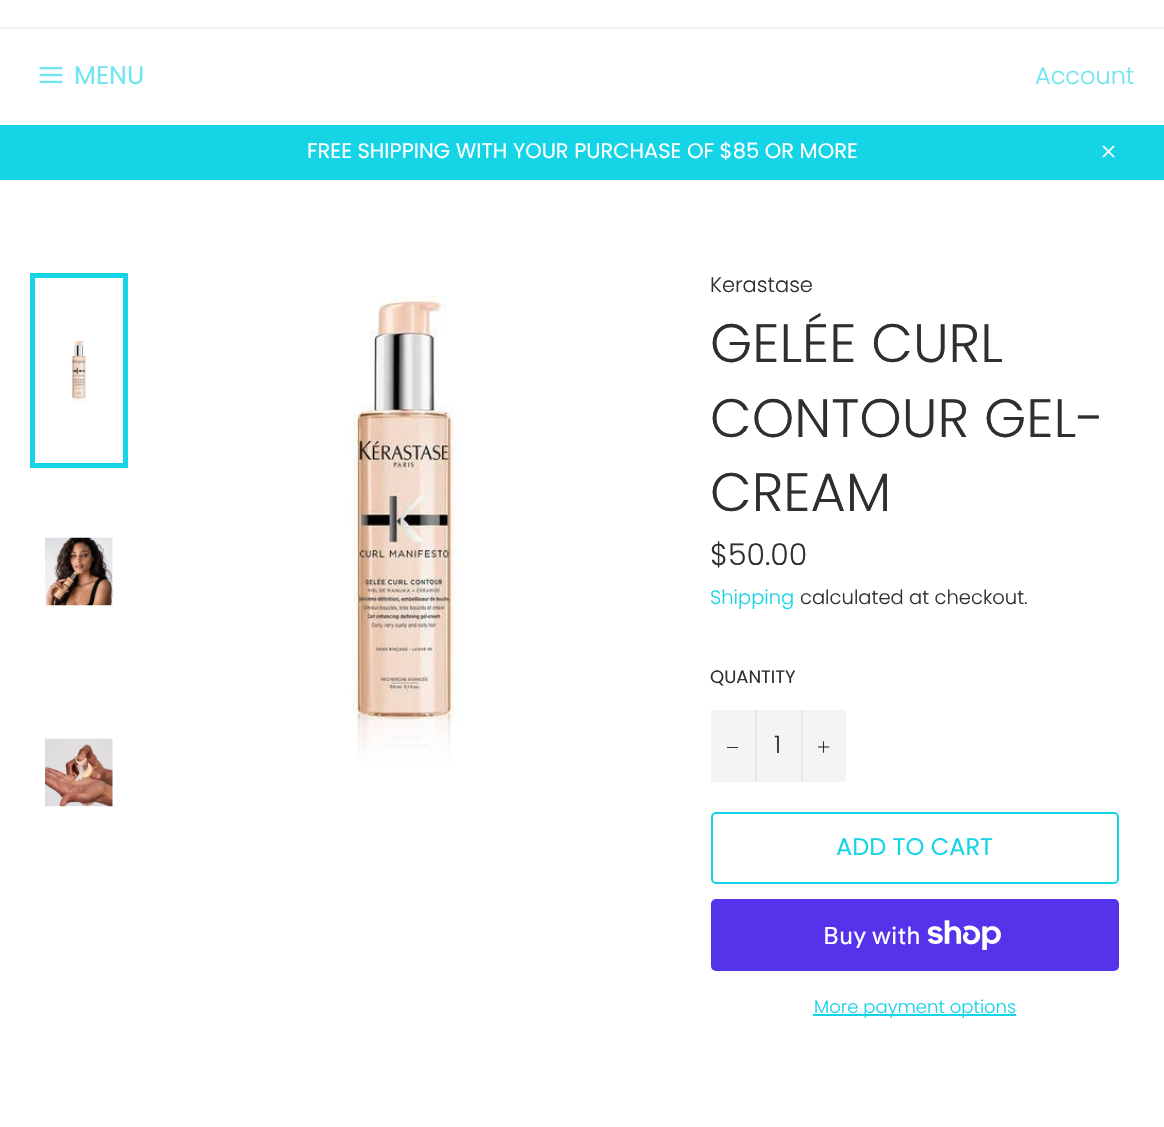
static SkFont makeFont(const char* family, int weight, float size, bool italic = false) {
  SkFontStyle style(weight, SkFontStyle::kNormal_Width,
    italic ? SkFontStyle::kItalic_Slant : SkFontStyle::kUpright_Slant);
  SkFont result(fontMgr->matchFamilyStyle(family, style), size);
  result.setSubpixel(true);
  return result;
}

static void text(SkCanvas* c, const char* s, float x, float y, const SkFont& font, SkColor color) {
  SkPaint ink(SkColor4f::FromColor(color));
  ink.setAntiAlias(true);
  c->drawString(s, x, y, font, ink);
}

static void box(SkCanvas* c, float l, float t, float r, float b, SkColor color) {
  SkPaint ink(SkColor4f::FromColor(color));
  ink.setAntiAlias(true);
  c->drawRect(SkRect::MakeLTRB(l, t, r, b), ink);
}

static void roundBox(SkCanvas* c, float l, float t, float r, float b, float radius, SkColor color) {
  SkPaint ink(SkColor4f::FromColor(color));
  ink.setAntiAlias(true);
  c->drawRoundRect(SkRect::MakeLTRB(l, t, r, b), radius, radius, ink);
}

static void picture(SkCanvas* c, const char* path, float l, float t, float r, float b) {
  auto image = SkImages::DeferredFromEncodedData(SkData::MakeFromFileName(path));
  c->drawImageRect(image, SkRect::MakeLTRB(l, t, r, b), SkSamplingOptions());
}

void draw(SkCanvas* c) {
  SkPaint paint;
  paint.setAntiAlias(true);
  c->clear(0xffffffff);
  box(c, 0, 27, 1164, 29, 0xfff2f2f2);
  picture(c, "img_01.png", 39, 67, 63, 84);
  SkFont face1 = makeFont("Poppins", 400, 25.5f);
  text(c, "MENU", 74, 84, face1, 0xff73e5f0);
  SkFont face2 = makeFont("Poppins", 300, 24);
  text(c, "Account", 1035, 84, face2, 0xff73e5f0);
  box(c, 0, 125, 1164, 180, 0xff15d4e6);
  SkFont face3 = makeFont("Poppins", 400, 21);
  text(c, "FREE SHIPPING WITH YOUR PURCHASE OF $85 OR MORE", 307, 158, face3, 0xffffffff);
  picture(c, "img_02.png", 1102, 145, 1115, 158);
  picture(c, "img_03.png", 71, 340, 86, 404);
  paint.setStyle(SkPaint::kStroke_Style);
  paint.setStrokeWidth(5);
  paint.setColor(0xff15d4e6);
  c->drawRect(SkRect::MakeLTRB(32.5f, 275.5f, 125.5f, 465.5f), paint);
  picture(c, "img_04.png", 45, 537, 113, 606);
  picture(c, "img_05.png", 45, 738, 113, 807);
  picture(c, "img_06.png", 346, 296, 463, 762);
  SkFont face4 = makeFont("Poppins", 300, 21);
  text(c, "Kerastase", 710, 292, face4, 0xff2f2f2f);
  SkFont face5 = makeFont("Poppins", 300, 54);
  text(c, "GELÉE CURL", 710, 362, face5, 0xff2f2f2f);
  text(c, "CONTOUR GEL-", 710, 437, face5, 0xff2f2f2f);
  text(c, "CREAM", 710, 511, face5, 0xff2f2f2f);
  SkFont face6 = makeFont("Poppins", 300, 30);
  text(c, "$50.00", 710, 565, face6, 0xff2f2f2f);
  SkFont face7 = makeFont("Poppins", 300, 19.5f);
  text(c, "Shipping", 710, 604, face7, 0xff15d4e6);
  text(c, "calculated at checkout.", 800, 604, face7, 0xff2f2f2f);
  SkFont face8 = makeFont("Poppins", 400, 18);
  text(c, "QUANTITY", 710, 683, face8, 0xff2f2f2f);
  box(c, 711, 710, 846, 782, 0xfff4f4f4);
  box(c, 755, 710, 757, 782, 0xffe7e7e7);
  box(c, 727, 747, 738, 748, 0xff2f2f2f);
  text(c, "1", 774, 753, face2, 0xff2f2f2f);
  box(c, 801, 710, 803, 782, 0xffe7e7e7);
  picture(c, "img_07.png", 818, 741, 830, 753);
  paint.setStrokeWidth(2);
  c->drawRoundRect(SkRect::MakeLTRB(712, 813, 1118, 883), 4, 4, paint);
  SkFont face9 = makeFont("Poppins", 400, 24);
  text(c, "ADD TO CART", 836, 855, face9, 0xff15d4e6);
  roundBox(c, 711, 899, 1119, 971, 5, 0xff5433eb);
  SkFont face10 = makeFont("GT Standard", 400, 24);
  text(c, "Buy with", 823, 944, face10, 0xffffffff);
  picture(c, "img_08.png", 927, 920, 1001, 950);
  box(c, 813, 1014, 1016, 1016, 0xff15d4e6);
  SkFont face11 = makeFont("Poppins", 300, 18);
  text(c, "More payment options", 814, 1013, face11, 0xff15d4e6);
}
